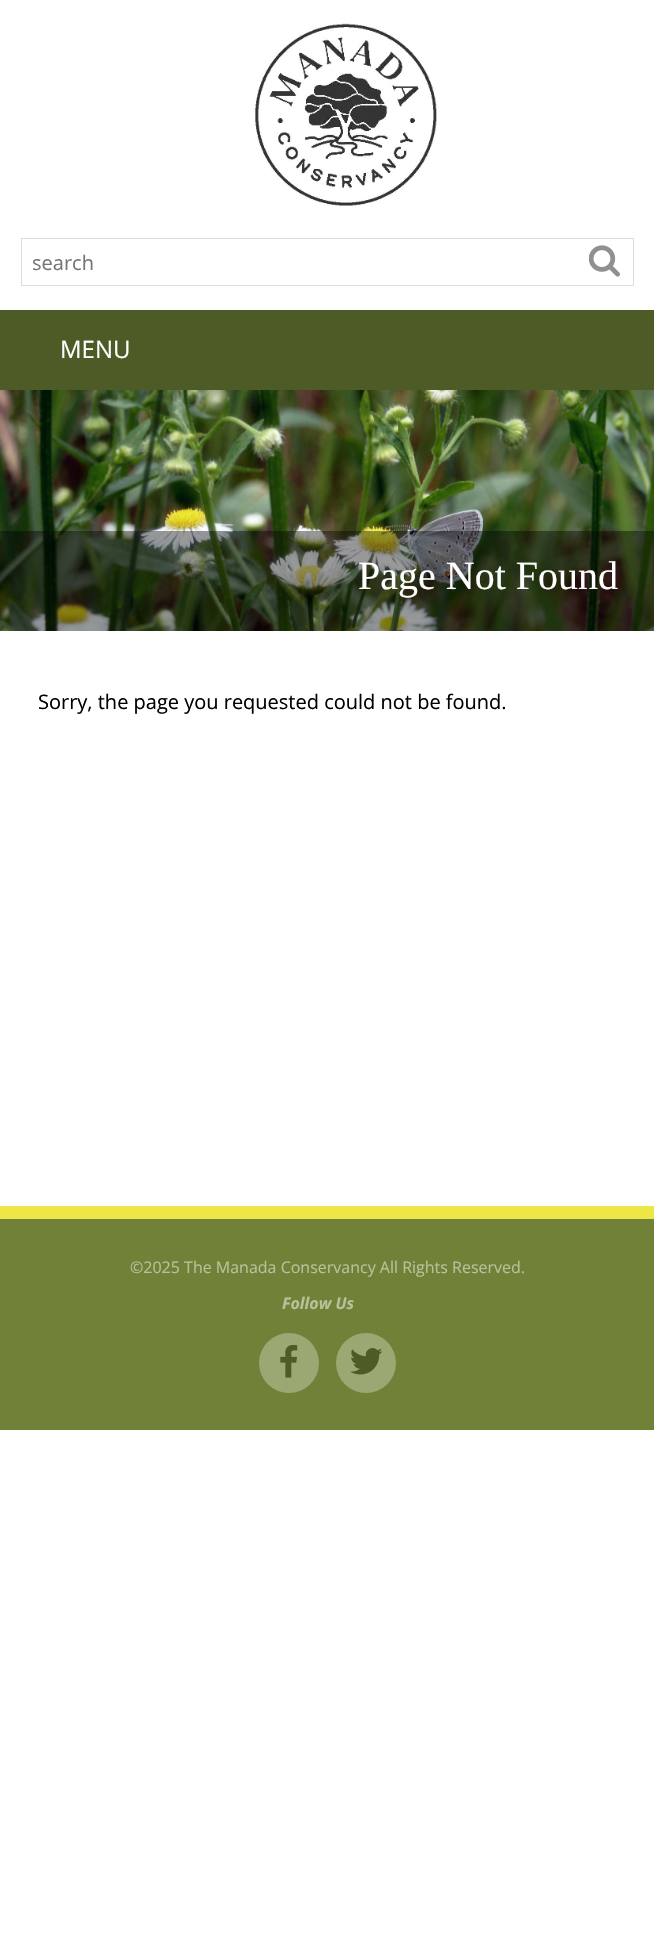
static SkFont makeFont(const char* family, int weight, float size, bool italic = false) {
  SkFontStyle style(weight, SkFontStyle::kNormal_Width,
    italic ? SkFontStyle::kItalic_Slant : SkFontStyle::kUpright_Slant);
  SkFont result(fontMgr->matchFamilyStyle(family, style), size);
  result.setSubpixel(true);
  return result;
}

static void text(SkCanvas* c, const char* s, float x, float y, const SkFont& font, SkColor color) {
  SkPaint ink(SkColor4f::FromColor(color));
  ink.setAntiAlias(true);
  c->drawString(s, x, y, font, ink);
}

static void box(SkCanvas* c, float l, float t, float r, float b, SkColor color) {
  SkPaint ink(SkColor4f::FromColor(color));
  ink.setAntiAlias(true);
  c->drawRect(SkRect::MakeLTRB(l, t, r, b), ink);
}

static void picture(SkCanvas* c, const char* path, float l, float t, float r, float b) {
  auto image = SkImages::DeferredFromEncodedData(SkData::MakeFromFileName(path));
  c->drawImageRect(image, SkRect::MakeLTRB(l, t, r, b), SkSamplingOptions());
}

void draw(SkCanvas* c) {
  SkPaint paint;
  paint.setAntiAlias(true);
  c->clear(0xffffffff);
  picture(c, "img_01.png", 255, 22, 437, 206);
  box(c, 21, 238, 634, 239, 0xffdddddd);
  box(c, 21, 285, 576, 286, 0xffdddddd);
  box(c, 21, 238, 22, 286, 0xffdddddd);
  SkFont face1 = makeFont("Open Sans", 400, 20);
  text(c, "search", 32, 270, face1, 0xff757575);
  box(c, 633, 238, 634, 286, 0xffdddddd);
  box(c, 576, 285, 634, 286, 0xffdddddd);
  picture(c, "img_02.png", 589, 245, 620, 277);
  box(c, 0, 310, 654, 390, 0xff4d5b26);
  SkFont face2 = makeFont("Open Sans", 400, 24);
  text(c, "MENU", 60, 358, face2, 0xffffffff);
  picture(c, "img_05.png", 0, 390, 654, 631);
  box(c, 0, 531, 654, 631, 0x66000000);
  SkFont face3 = makeFont("Liberation Serif", 400, 40);
  text(c, "Page Not Found", 358, 589, face3, 0xffffffff);
  text(c, "Sorry, the page you requested could not be found.", 38, 709, face1, 0xff000000);
  box(c, 0, 1219, 654, 1430, 0xff6f8237);
  box(c, 0, 1206, 654, 1219, 0xffeee645);
  SkFont face4 = makeFont("Open Sans", 400, 16);
  text(c, "©2025 The Manada Conservancy All Rights Reserved.", 130, 1273, face4, 0xffb7c19b);
  SkFont face5 = makeFont("Open Sans", 700, 16, true);
  text(c, "Follow Us", 282, 1309, face5, 0xffb7c19b);
  paint.setColor(0xff9aa873);
  c->drawCircle(289, 1363, 30, paint);
  picture(c, "img_03.png", 280, 1345, 298, 1378);
  c->drawCircle(366, 1363, 30, paint);
  picture(c, "img_04.png", 350, 1348, 383, 1375);
}
